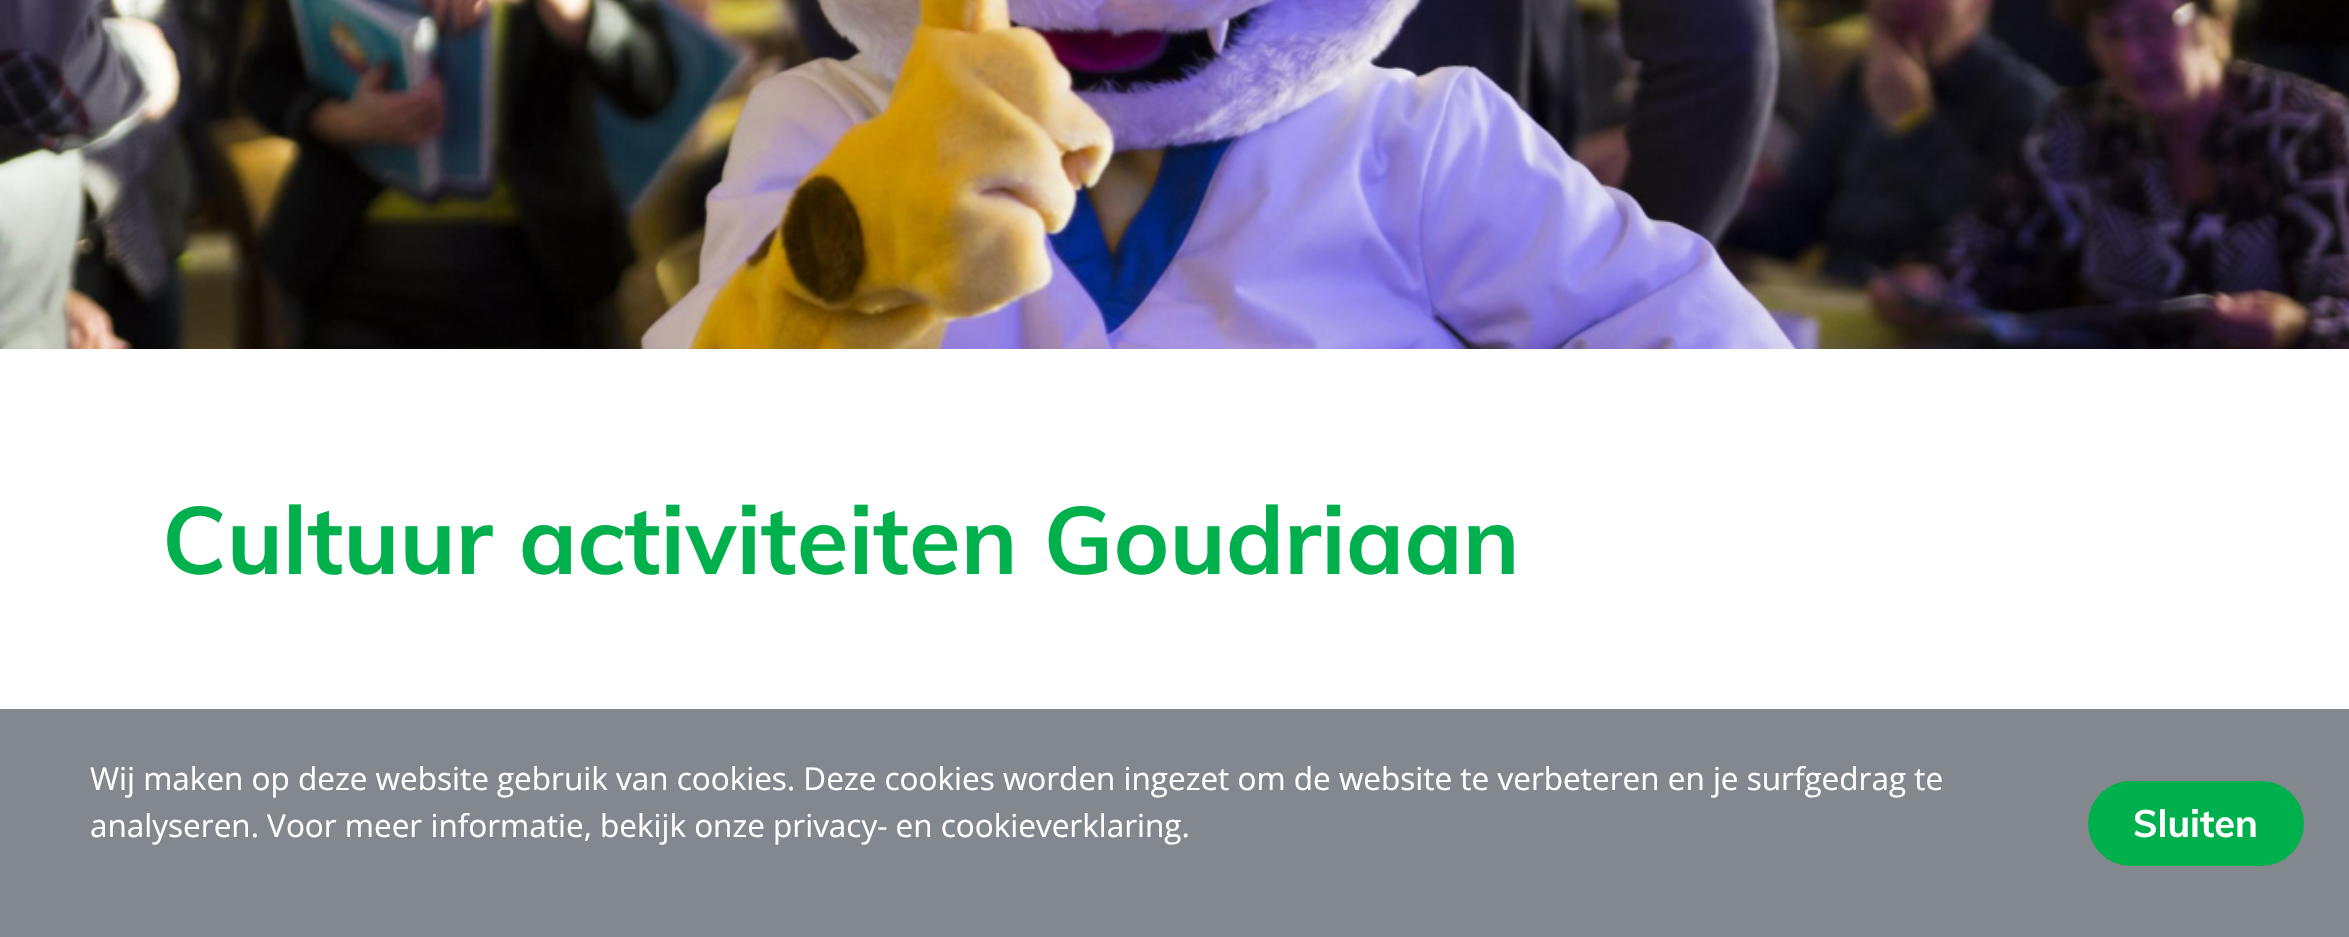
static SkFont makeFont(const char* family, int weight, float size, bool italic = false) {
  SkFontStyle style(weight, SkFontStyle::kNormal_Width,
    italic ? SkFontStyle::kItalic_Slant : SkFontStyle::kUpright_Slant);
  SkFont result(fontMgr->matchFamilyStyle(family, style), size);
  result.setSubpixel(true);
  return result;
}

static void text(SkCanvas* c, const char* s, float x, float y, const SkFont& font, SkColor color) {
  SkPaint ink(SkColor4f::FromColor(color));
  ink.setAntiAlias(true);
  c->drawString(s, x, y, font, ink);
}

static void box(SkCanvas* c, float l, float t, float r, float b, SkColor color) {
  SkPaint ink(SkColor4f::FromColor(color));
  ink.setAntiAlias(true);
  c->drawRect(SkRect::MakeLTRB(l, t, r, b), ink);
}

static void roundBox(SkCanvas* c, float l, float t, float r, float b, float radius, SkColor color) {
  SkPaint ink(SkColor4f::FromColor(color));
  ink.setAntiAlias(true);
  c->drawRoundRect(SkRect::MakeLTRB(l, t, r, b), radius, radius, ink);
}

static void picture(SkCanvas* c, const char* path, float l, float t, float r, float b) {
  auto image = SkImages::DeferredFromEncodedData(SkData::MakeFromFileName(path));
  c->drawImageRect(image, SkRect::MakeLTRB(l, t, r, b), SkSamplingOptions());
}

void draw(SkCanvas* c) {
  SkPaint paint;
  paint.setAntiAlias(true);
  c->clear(0xffffffff);
  picture(c, "img_01.png", 0, 0, 2349, 349);
  SkFont face1 = makeFont("Muli", 700, 94.5f);
  text(c, "Cultuur activiteiten Goudriaan", 162, 574, face1, 0xff00b04c);
  box(c, 0, 709, 2349, 937, 0xff82888d);
  SkFont face2 = makeFont("Open Sans", 400, 31.5f);
  text(c, "Wij maken op deze website gebruik van cookies. Deze cookies worden ingezet om de website te verbeteren en je surfgedrag te", 90, 790, face2, 0xffffffff);
  text(c, "analyseren. Voor meer informatie, bekijk onze privacy- en cookieverklaring.", 90, 837, face2, 0xffffffff);
  roundBox(c, 2088, 781, 2304, 866, 42.5f, 0xff00b04c);
  SkFont face3 = makeFont("Muli", 700, 38);
  text(c, "Sluiten", 2133, 837, face3, 0xffffffff);
}
